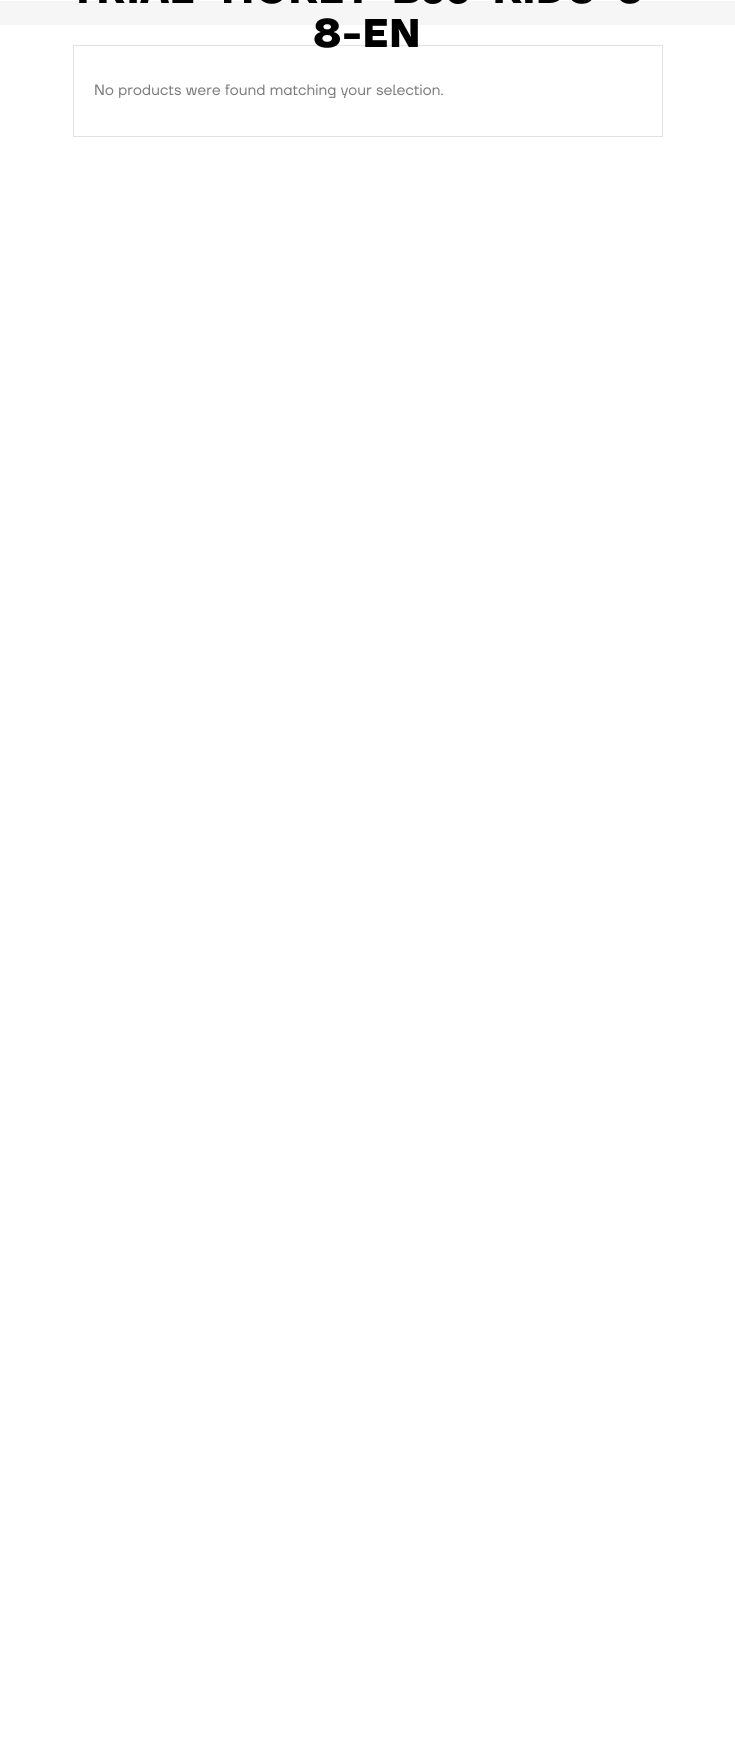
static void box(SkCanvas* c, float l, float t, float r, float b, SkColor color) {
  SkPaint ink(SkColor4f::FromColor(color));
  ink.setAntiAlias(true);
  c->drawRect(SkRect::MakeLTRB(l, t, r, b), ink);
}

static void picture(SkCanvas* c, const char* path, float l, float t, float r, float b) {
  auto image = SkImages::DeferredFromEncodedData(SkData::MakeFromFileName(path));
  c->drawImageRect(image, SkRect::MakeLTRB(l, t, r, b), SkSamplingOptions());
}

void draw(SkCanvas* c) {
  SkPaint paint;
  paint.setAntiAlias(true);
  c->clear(0xffffffff);
  box(c, 0, 1, 735, 25, 0xfff6f6f6);
  picture(c, "img_01.png", 79, 0, 640, 4);
  paint.setStyle(SkPaint::kStroke_Style);
  paint.setStrokeWidth(1);
  paint.setColor(0xffe1e1e1);
  c->drawRect(SkRect::MakeLTRB(73.5f, 45.5f, 662.5f, 136.5f), paint);
  picture(c, "img_02.png", 314, 18, 418, 48);
  picture(c, "img_03.png", 95, 84, 443, 98);
}
